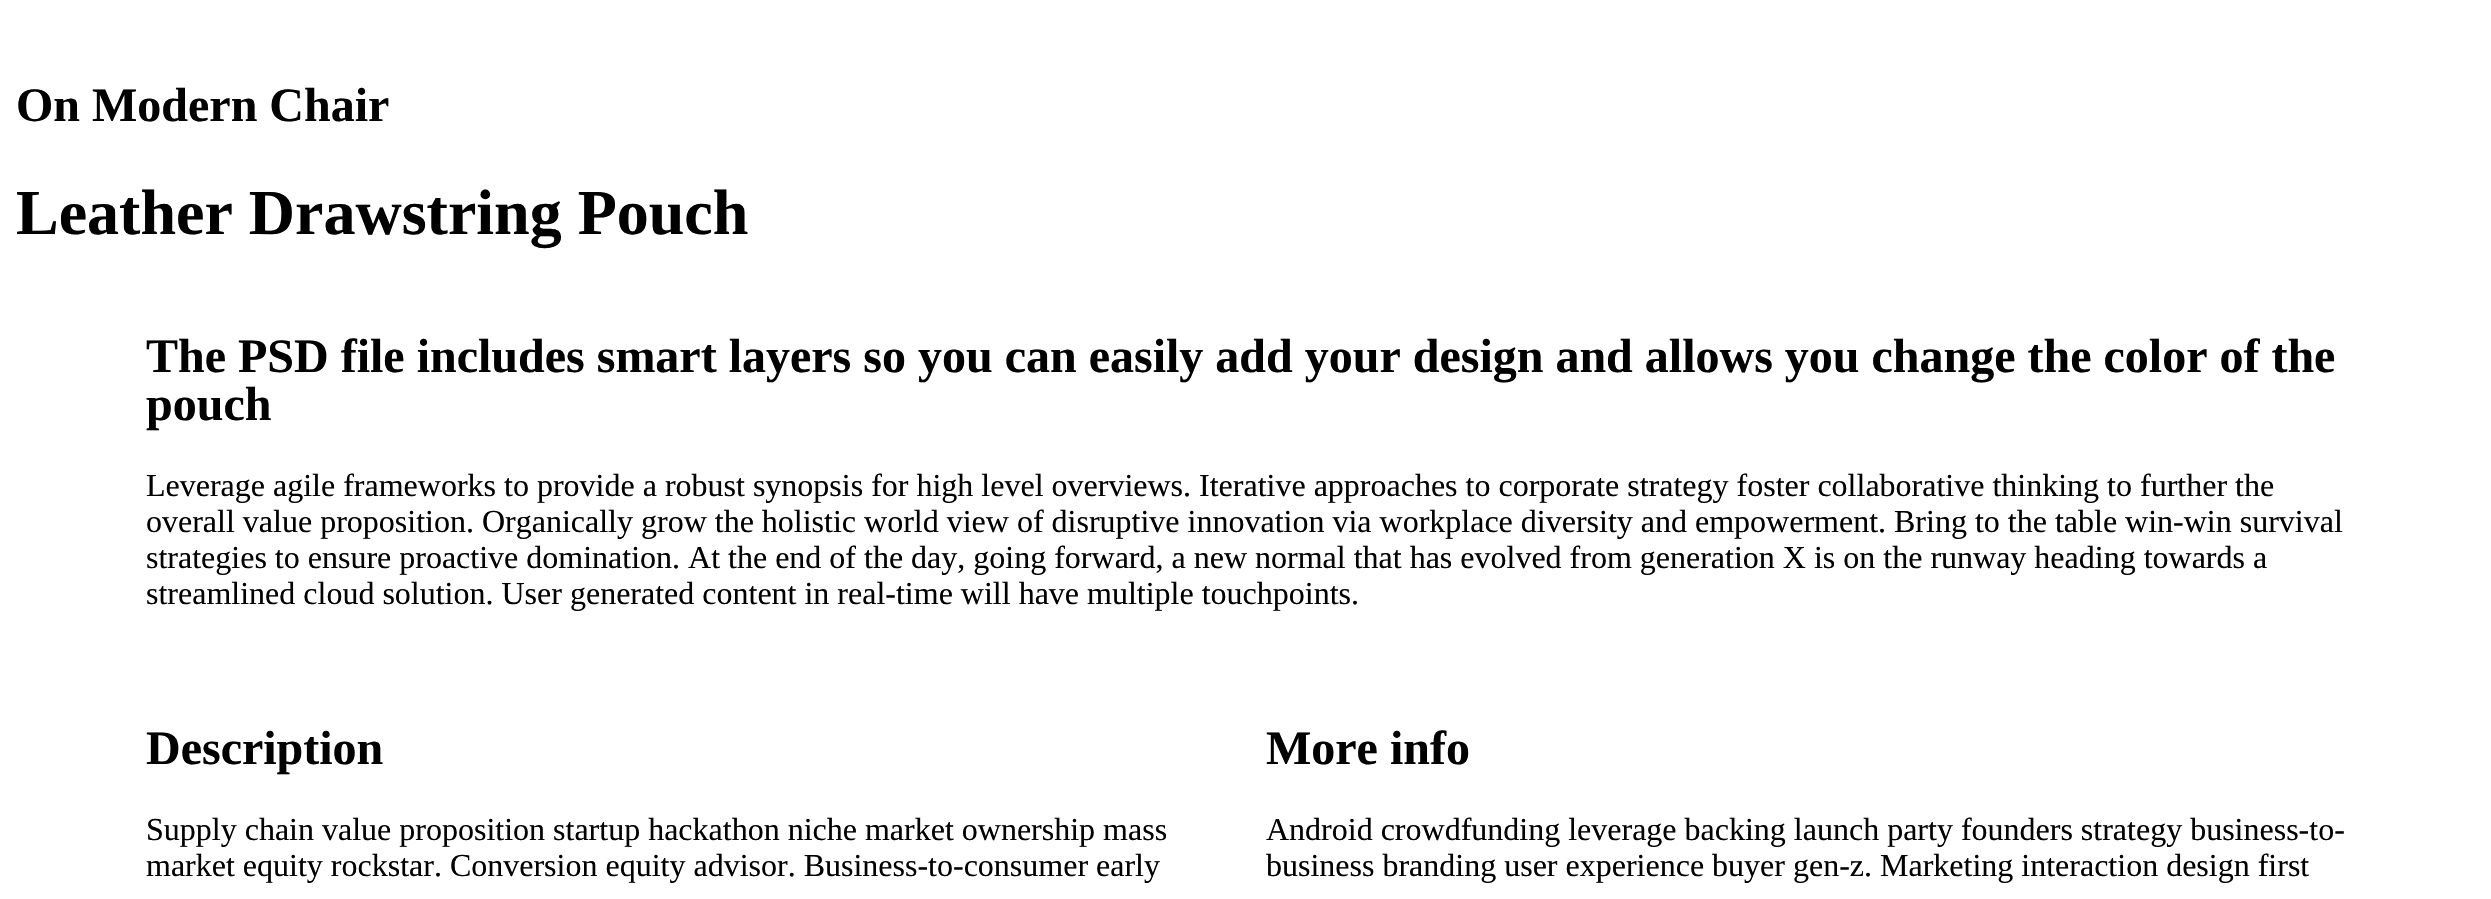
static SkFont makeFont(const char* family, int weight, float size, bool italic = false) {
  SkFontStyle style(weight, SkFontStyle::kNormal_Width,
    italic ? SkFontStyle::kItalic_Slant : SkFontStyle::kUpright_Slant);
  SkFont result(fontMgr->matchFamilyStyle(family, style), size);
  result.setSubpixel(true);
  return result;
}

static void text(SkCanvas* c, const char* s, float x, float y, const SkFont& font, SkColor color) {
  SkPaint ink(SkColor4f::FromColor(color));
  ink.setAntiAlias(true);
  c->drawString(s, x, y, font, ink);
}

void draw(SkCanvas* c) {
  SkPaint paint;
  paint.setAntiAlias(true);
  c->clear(0xffffffff);
  SkFont face1 = makeFont("Liberation Serif", 700, 48);
  text(c, "On Modern Chair", 16, 121, face1, 0xff000000);
  SkFont face2 = makeFont("Liberation Serif", 700, 64);
  text(c, "Leather Drawstring Pouch", 16, 234, face2, 0xff000000);
  text(c, "The PSD file includes smart layers so you can easily add your design and allows you change the color of the", 146, 372, face1, 0xff000000);
  text(c, "pouch", 146, 420, face1, 0xff000000);
  SkFont face3 = makeFont("Liberation Serif", 400, 32);
  text(c, "Leverage agile frameworks to provide a robust synopsis for high level overviews. Iterative approaches to corporate strategy foster collaborative thinking to further the", 146, 496, face3, 0xff000000);
  text(c, "overall value proposition. Organically grow the holistic world view of disruptive innovation via workplace diversity and empowerment. Bring to the table win-win survival", 146, 532, face3, 0xff000000);
  text(c, "strategies to ensure proactive domination. At the end of the day, going forward, a new normal that has evolved from generation X is on the runway heading towards a", 146, 568, face3, 0xff000000);
  text(c, "streamlined cloud solution. User generated content in real-time will have multiple touchpoints.", 146, 604, face3, 0xff000000);
  text(c, "Description", 146, 764, face1, 0xff000000);
  text(c, "Supply chain value proposition startup hackathon niche market ownership mass", 146, 840, face3, 0xff000000);
  text(c, "market equity rockstar. Conversion equity advisor. Business-to-consumer early", 146, 876, face3, 0xff000000);
  text(c, "More info", 1266, 764, face1, 0xff000000);
  text(c, "Android crowdfunding leverage backing launch party founders strategy business-to-", 1266, 840, face3, 0xff000000);
  text(c, "business branding user experience buyer gen-z. Marketing interaction design first", 1266, 876, face3, 0xff000000);
}
